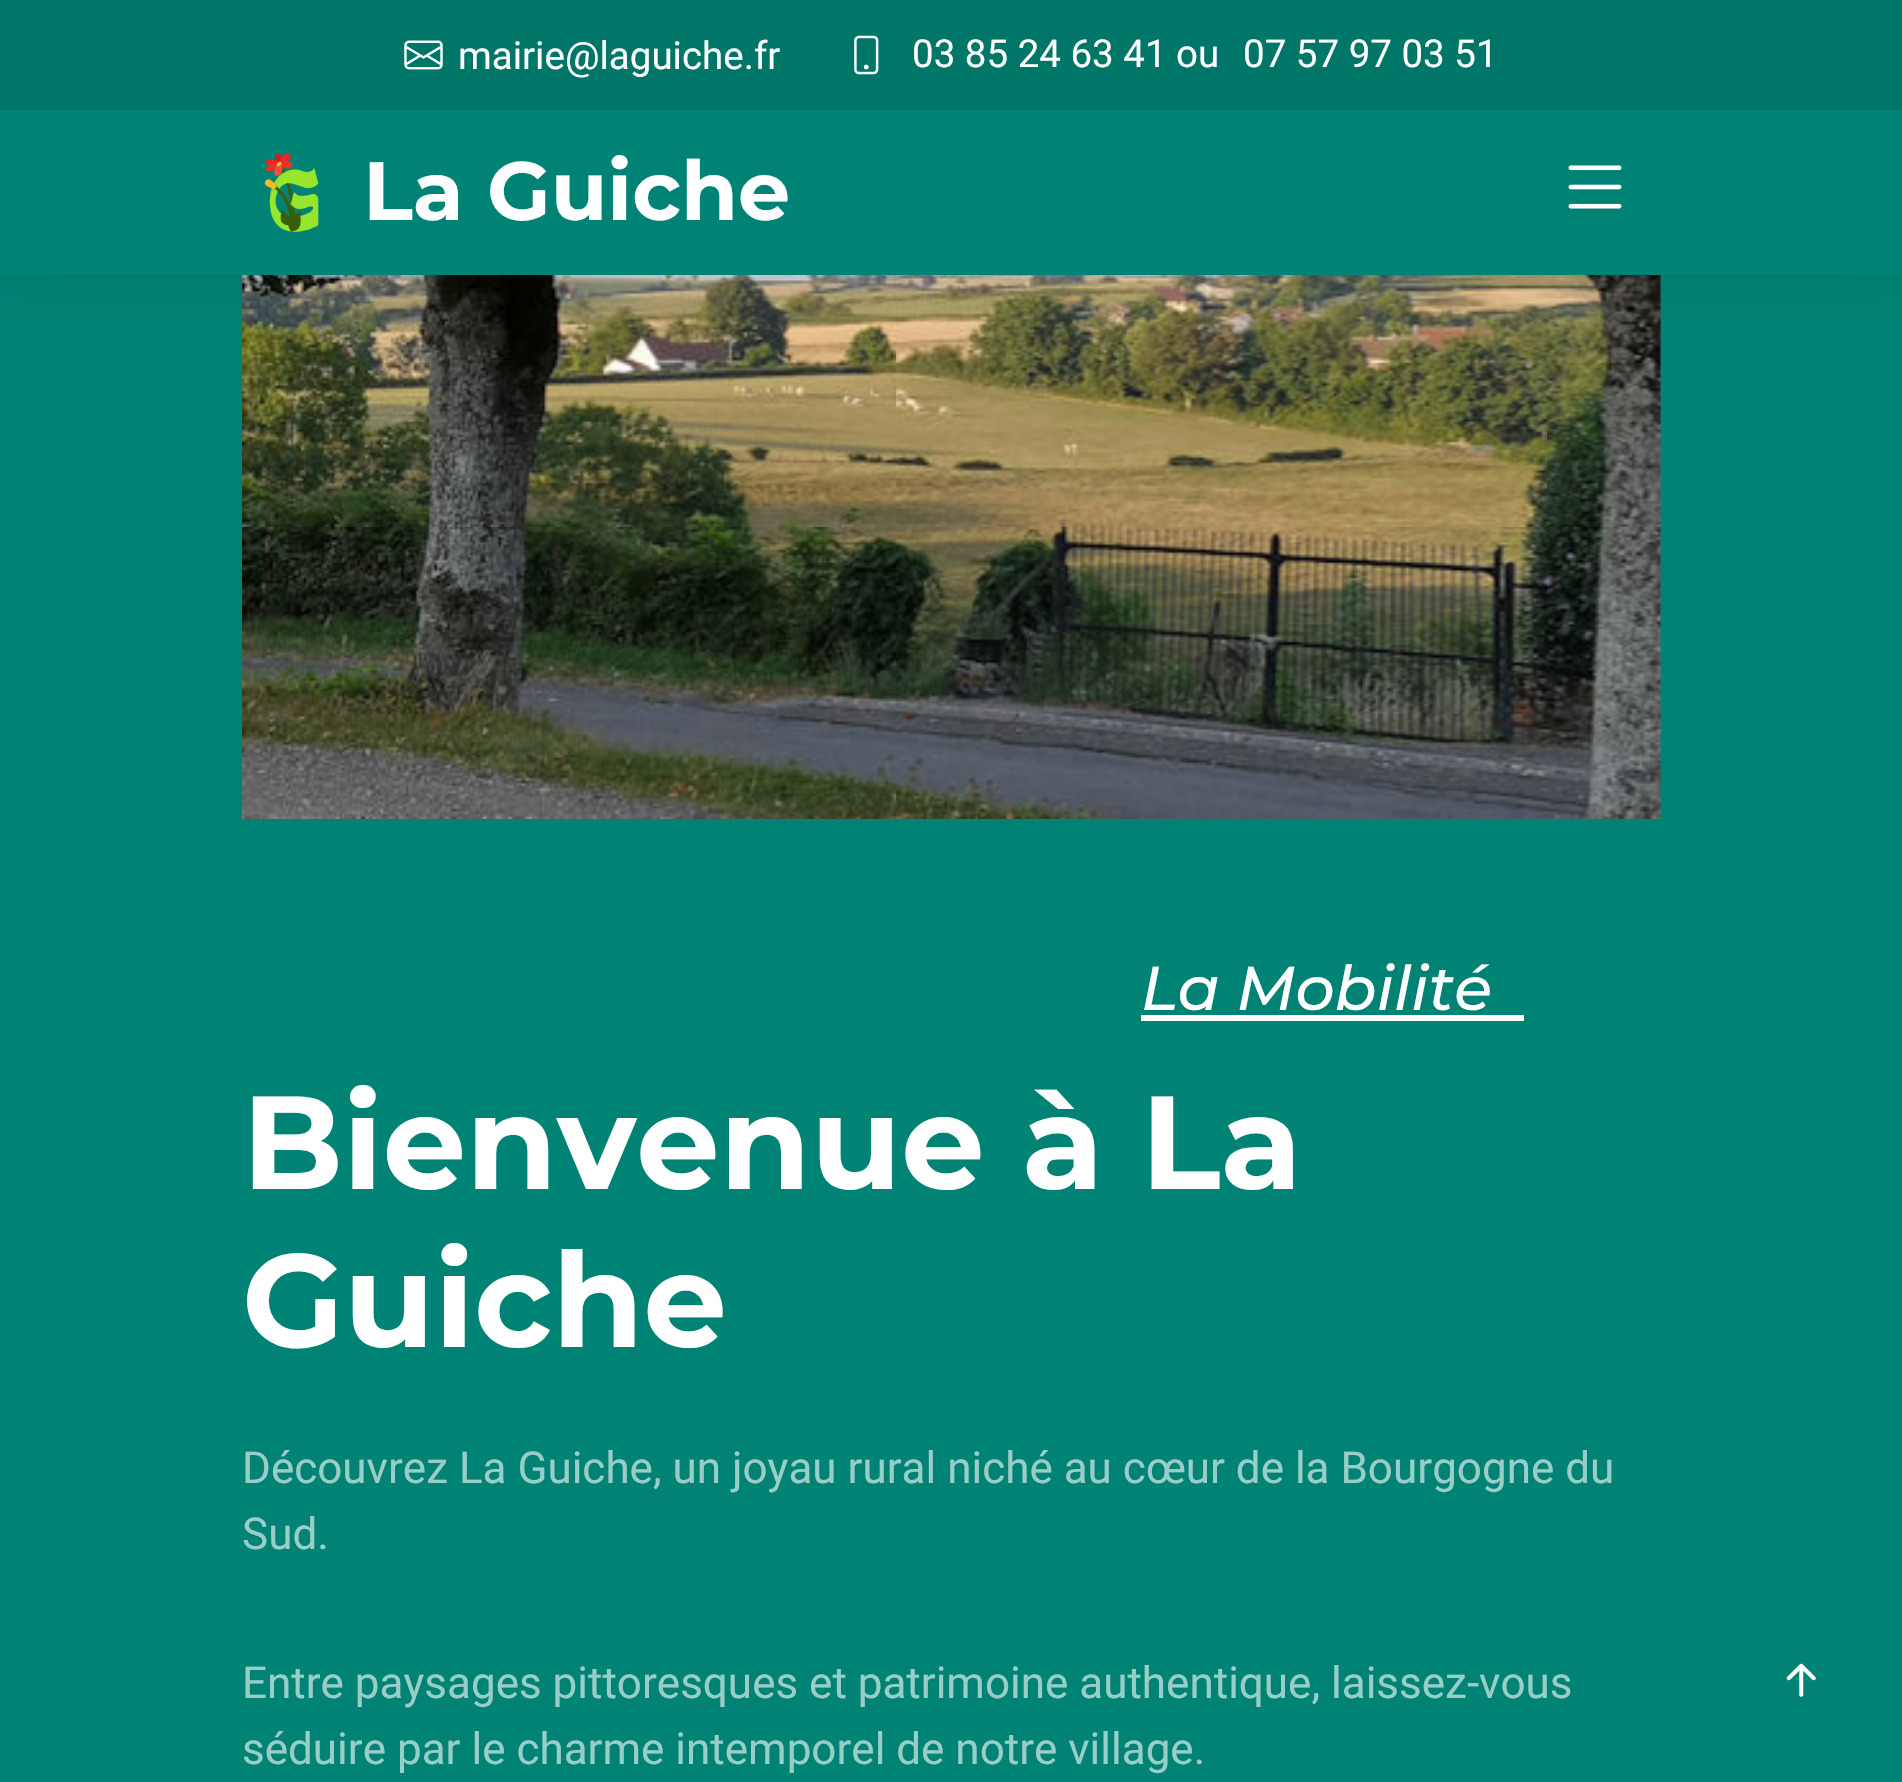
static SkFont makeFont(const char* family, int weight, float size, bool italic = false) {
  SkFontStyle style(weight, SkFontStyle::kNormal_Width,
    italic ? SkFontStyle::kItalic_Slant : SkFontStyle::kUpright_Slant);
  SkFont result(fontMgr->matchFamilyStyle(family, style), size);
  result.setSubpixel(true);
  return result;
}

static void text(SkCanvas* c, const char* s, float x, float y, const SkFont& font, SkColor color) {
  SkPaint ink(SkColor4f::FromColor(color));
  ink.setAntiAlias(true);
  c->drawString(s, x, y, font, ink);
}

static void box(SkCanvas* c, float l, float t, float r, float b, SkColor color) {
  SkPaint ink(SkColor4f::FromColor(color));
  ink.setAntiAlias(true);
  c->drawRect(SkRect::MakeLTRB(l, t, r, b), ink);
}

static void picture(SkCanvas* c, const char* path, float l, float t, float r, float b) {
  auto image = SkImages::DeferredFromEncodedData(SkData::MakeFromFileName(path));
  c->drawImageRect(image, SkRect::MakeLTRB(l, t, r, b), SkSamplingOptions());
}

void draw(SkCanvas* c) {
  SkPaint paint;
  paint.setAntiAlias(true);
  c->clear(0xff008374);
  picture(c, "img_05.png", 242, 275, 1661, 819);
  paint.setColor(0x1a000000);
  paint.setMaskFilter(SkMaskFilter::MakeBlur(kNormal_SkBlurStyle, 25));
  c->drawRect(SkRect::MakeLTRB(0, 0, 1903, 275), paint);
  paint.setMaskFilter(nullptr);
  box(c, 0, 110, 1902, 275, 0xff008374);
  box(c, 0, 0, 1902, 110, 0xff007668);
  picture(c, "img_01.png", 404, 40, 443, 70);
  SkFont face1 = makeFont("Roboto", 400, 38.5f);
  text(c, "mairie@laguiche.fr", 458, 69, face1, 0xffffffff);
  picture(c, "img_02.png", 854, 35, 879, 75);
  text(c, "03 85 24 63 41 ou", 912, 67, face1, 0xffffffff);
  text(c, "07 57 97 03 51", 1243, 67, face1, 0xffffffff);
  picture(c, "img_03.png", 264, 153, 319, 232);
  SkFont face2 = makeFont("Montserrat", 700, 82.5f);
  text(c, "La Guiche", 363, 220, face2, 0xffffffff);
  picture(c, "img_04.png", 1568, 165, 1622, 209);
  SkFont face3 = makeFont("Montserrat", 500, 61.75f, true);
  text(c, "La Mobilité", 1141, 1010, face3, 0xffffffff);
  box(c, 1141, 1015, 1524, 1021, 0xffffffff);
  SkFont face4 = makeFont("Montserrat", 700, 132);
  text(c, "Bienvenue à La", 242, 1189, face4, 0xffffffff);
  text(c, "Guiche", 242, 1347, face4, 0xffffffff);
  SkFont face5 = makeFont("Roboto", 400, 44);
  text(c, "Découvrez La Guiche, un joyau rural niché au cœur de la Bourgogne du", 242, 1483, face5, 0xff99cdc7);
  text(c, "Sud.", 242, 1549, face5, 0xff99cdc7);
  text(c, "Entre paysages pittoresques et patrimoine authentique, laissez-vous", 242, 1698, face5, 0xff99cdc7);
  text(c, "séduire par le charme intemporel de notre village.", 242, 1764, face5, 0xff99cdc7);
  picture(c, "img_06.png", 1786, 1663, 1816, 1697);
}
